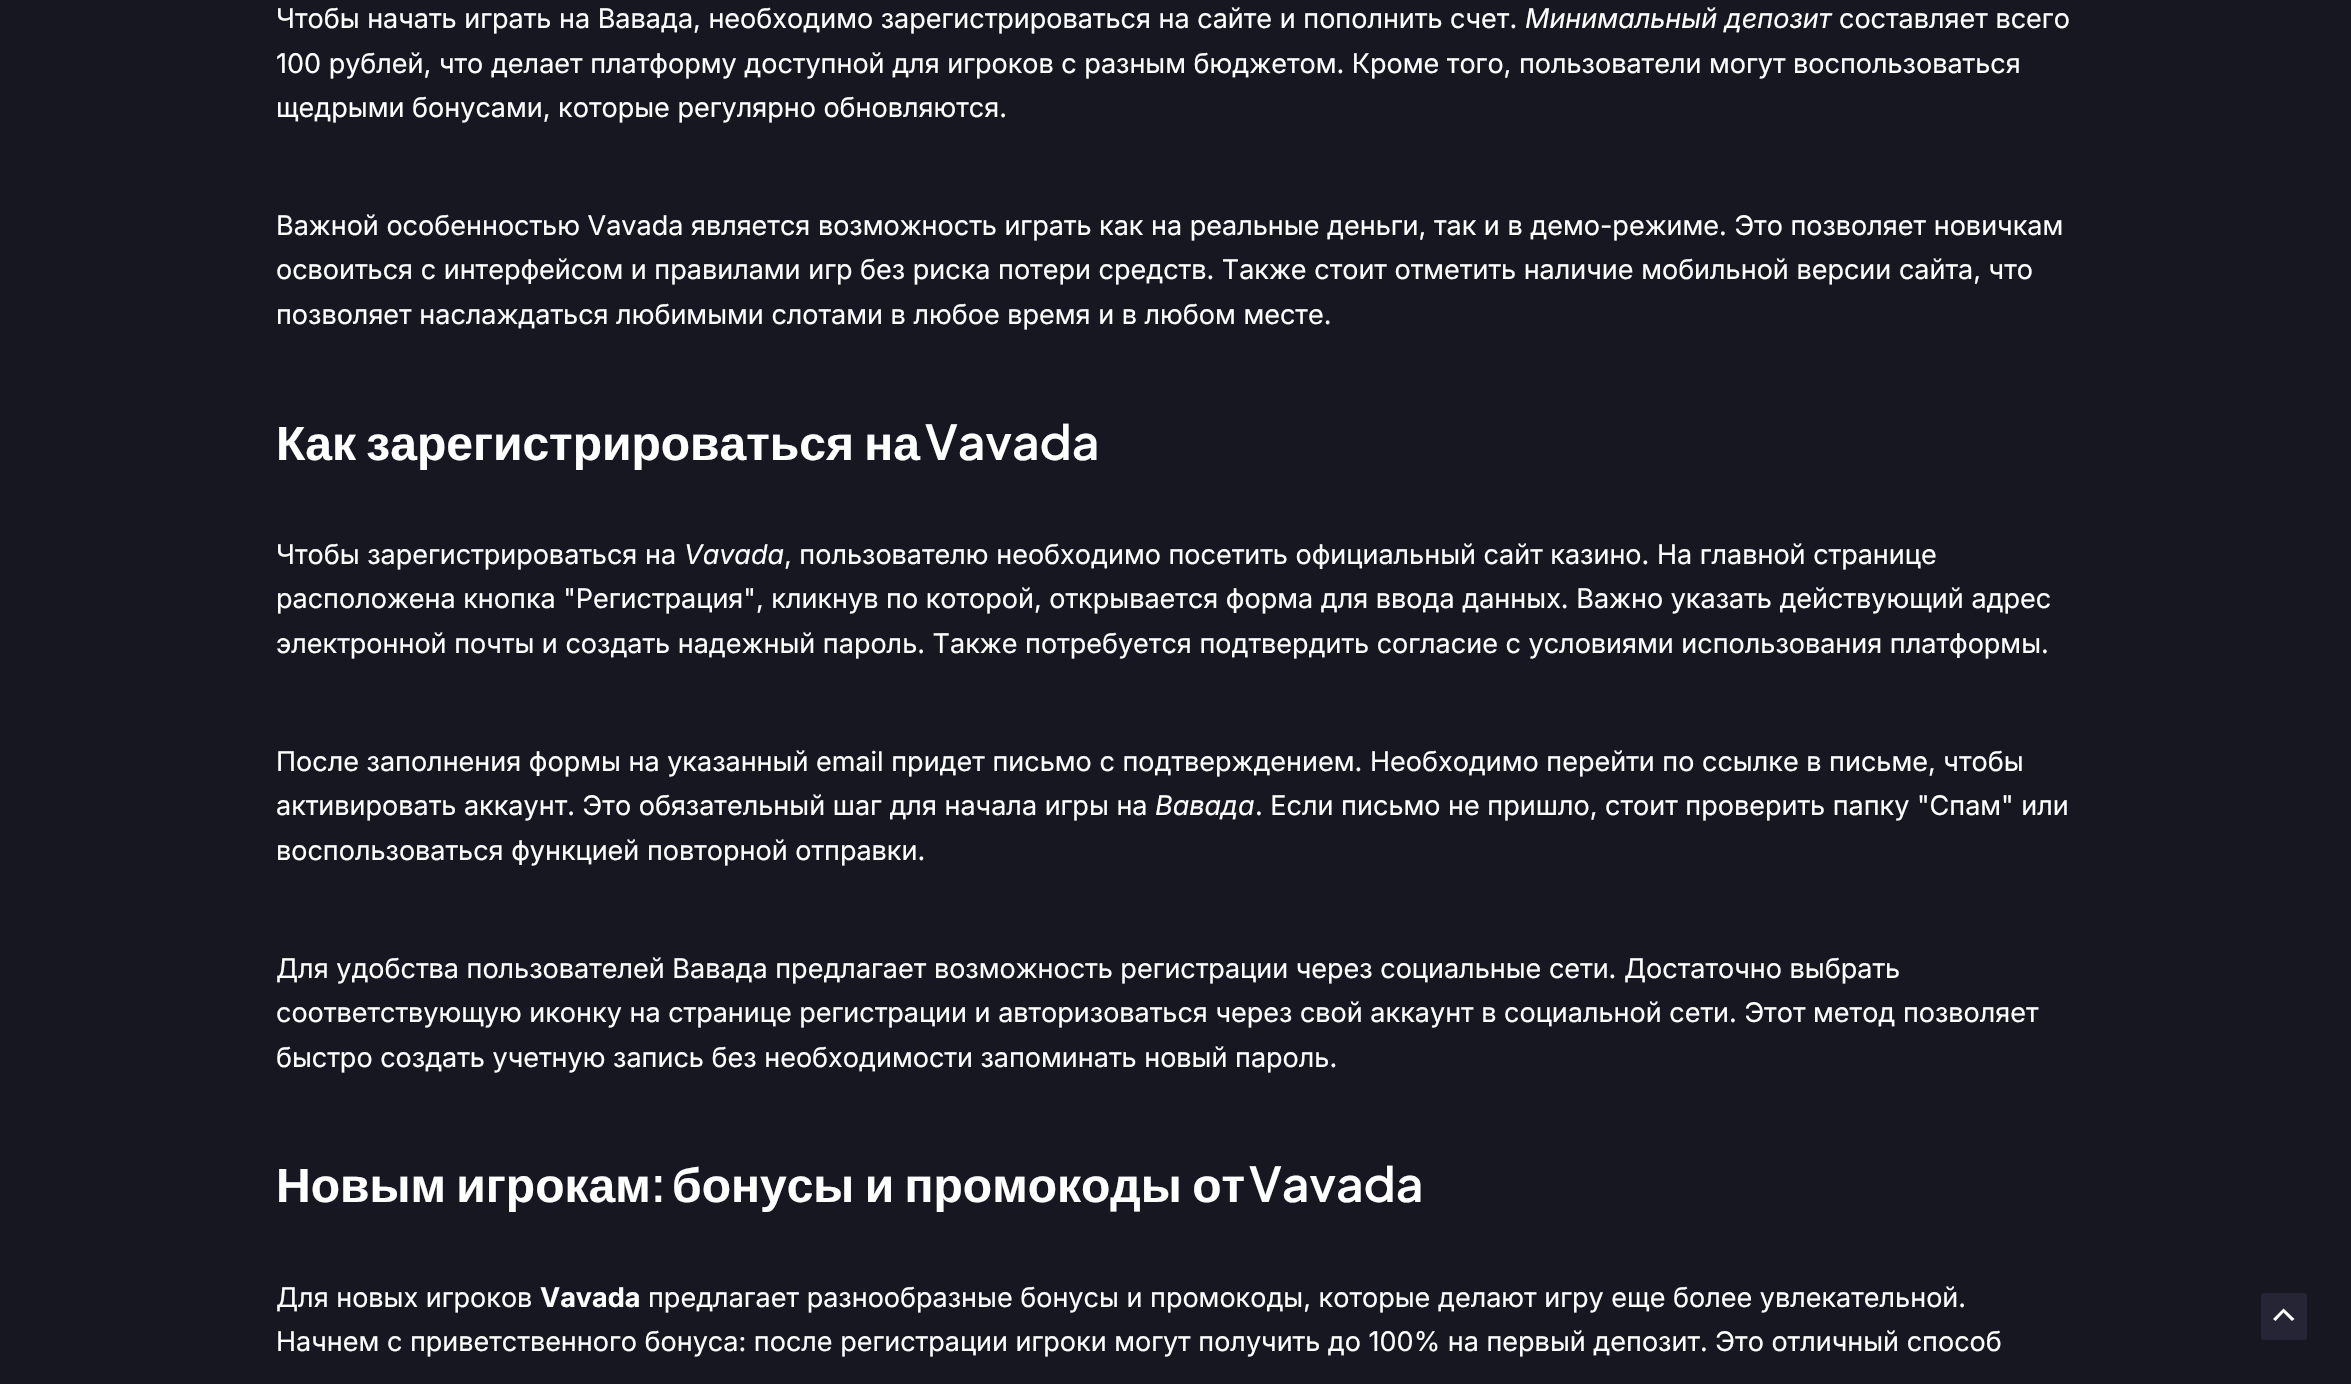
static SkFont makeFont(const char* family, int weight, float size, bool italic = false) {
  SkFontStyle style(weight, SkFontStyle::kNormal_Width,
    italic ? SkFontStyle::kItalic_Slant : SkFontStyle::kUpright_Slant);
  SkFont result(fontMgr->matchFamilyStyle(family, style), size);
  result.setSubpixel(true);
  return result;
}

static void text(SkCanvas* c, const char* s, float x, float y, const SkFont& font, SkColor color) {
  SkPaint ink(SkColor4f::FromColor(color));
  ink.setAntiAlias(true);
  c->drawString(s, x, y, font, ink);
}

static void spacedText(SkCanvas* c, const char* s, float x, float y, const SkFont& font, const SkPaint& ink, float letter, float word) {
  std::vector<SkGlyphID> glyphs(font.countText(s, strlen(s), SkTextEncoding::kUTF8));
  std::vector<float> xs(glyphs.size());
  font.textToGlyphs(s, strlen(s), SkTextEncoding::kUTF8, glyphs);
  font.getXPos(glyphs, xs, x);
  float extra = 0;
  for (size_t i = 0; i < glyphs.size(); i++) {
    xs[i] += extra;
    extra += letter + word * (glyphs[i] == font.unicharToGlyph(' '));
  }
  c->drawTextBlob(SkTextBlob::MakeFromPosHGlyphs(glyphs, xs, y, font), 0, 0, ink);
}

static void roundBox(SkCanvas* c, float l, float t, float r, float b, float radius, SkColor color) {
  SkPaint ink(SkColor4f::FromColor(color));
  ink.setAntiAlias(true);
  c->drawRoundRect(SkRect::MakeLTRB(l, t, r, b), radius, radius, ink);
}

void draw(SkCanvas* c) {
  SkPaint paint;
  paint.setAntiAlias(true);
  c->clear(0xff171722);
  SkFont face1 = makeFont("Inter", 400, 27);
  text(c, "Чтобы начать играть на Вавада, необходимо зарегистрироваться на сайте и пополнить счет.", 276, 28, face1, 0xffffffff);
  SkFont face2 = makeFont("Inter", 400, 27, true);
  text(c, "Минимальный депозит", 1525, 28, face2, 0xffffffff);
  text(c, "составляет всего", 1839, 28, face1, 0xffffffff);
  text(c, "100 рублей, что делает платформу доступной для игроков с разным бюджетом. Кроме того, пользователи могут воспользоваться", 276, 73, face1, 0xffffffff);
  text(c, "щедрыми бонусами, которые регулярно обновляются.", 276, 117, face1, 0xffffffff);
  text(c, "Важной особенностью Vavada является возможность играть как на реальные деньги, так и в демо-режиме. Это позволяет новичкам", 276, 235, face1, 0xffffffff);
  text(c, "освоиться с интерфейсом и правилами игр без риска потери средств. Также стоит отметить наличие мобильной версии сайта, что", 276, 279, face1, 0xffffffff);
  text(c, "позволяет наслаждаться любимыми слотами в любое время и в любом месте.", 276, 324, face1, 0xffffffff);
  SkFont face3 = makeFont("Liberation Sans", 700, 48);
  paint.setColor(0xffffffff);
  spacedText(c, "Как зарегистрироваться на", 276, 460, face3, paint, 0, -3);
  SkFont face4 = makeFont("Plus Jakarta Sans", 600, 48);
  text(c, "Vavada", 925, 460, face4, 0xffffffff);
  text(c, "Чтобы зарегистрироваться на", 276, 564, face1, 0xffffffff);
  text(c, "Vavada", 684, 564, face2, 0xffffffff);
  text(c, ", пользователю необходимо посетить официальный сайт казино. На главной странице", 784, 564, face1, 0xffffffff);
  text(c, "расположена кнопка \"Регистрация\", кликнув по которой, открывается форма для ввода данных. Важно указать действующий адрес", 276, 608, face1, 0xffffffff);
  text(c, "электронной почты и создать надежный пароль. Также потребуется подтвердить согласие с условиями использования платформы.", 276, 653, face1, 0xffffffff);
  text(c, "После заполнения формы на указанный email придет письмо с подтверждением. Необходимо перейти по ссылке в письме, чтобы", 276, 771, face1, 0xffffffff);
  text(c, "активировать аккаунт. Это обязательный шаг для начала игры на", 276, 815, face1, 0xffffffff);
  text(c, "Вавада", 1155, 815, face2, 0xffffffff);
  text(c, ". Если письмо не пришло, стоит проверить папку \"Спам\" или", 1255, 815, face1, 0xffffffff);
  text(c, "воспользоваться функцией повторной отправки.", 276, 860, face1, 0xffffffff);
  text(c, "Для удобства пользователей Вавада предлагает возможность регистрации через социальные сети. Достаточно выбрать", 276, 978, face1, 0xffffffff);
  text(c, "соответствующую иконку на странице регистрации и авторизоваться через свой аккаунт в социальной сети. Этот метод позволяет", 276, 1022, face1, 0xffffffff);
  text(c, "быстро создать учетную запись без необходимости запоминать новый пароль.", 276, 1067, face1, 0xffffffff);
  spacedText(c, "Новым игрокам", 276, 1202, face3, paint, 0, -3);
  text(c, ":", 650, 1202, face4, 0xffffffff);
  spacedText(c, "бонусы и промокоды от", 672, 1202, face3, paint, 0, -3);
  text(c, "Vavada", 1249, 1202, face4, 0xffffffff);
  text(c, "Для новых игроков", 276, 1307, face1, 0xffffffff);
  SkFont face5 = makeFont("Inter", 700, 27);
  text(c, "Vavada", 540, 1307, face5, 0xffffffff);
  text(c, "предлагает разнообразные бонусы и промокоды, которые делают игру еще более увлекательной.", 648, 1307, face1, 0xffffffff);
  text(c, "Начнем с приветственного бонуса: после регистрации игроки могут получить до 100% на первый депозит. Это отличный способ", 276, 1351, face1, 0xffffffff);
  roundBox(c, 2261, 1293, 2307, 1340, 3, 0xff252536);
  c->drawPath(SkPathBuilder().moveTo(2294.5f, 1319).lineTo(2283.5f, 1308.5f).lineTo(2273, 1319).lineTo(2275.5f, 1321).lineTo(2283.5f, 1312.5f).lineTo(2292, 1321).close().detach(), paint);
}
